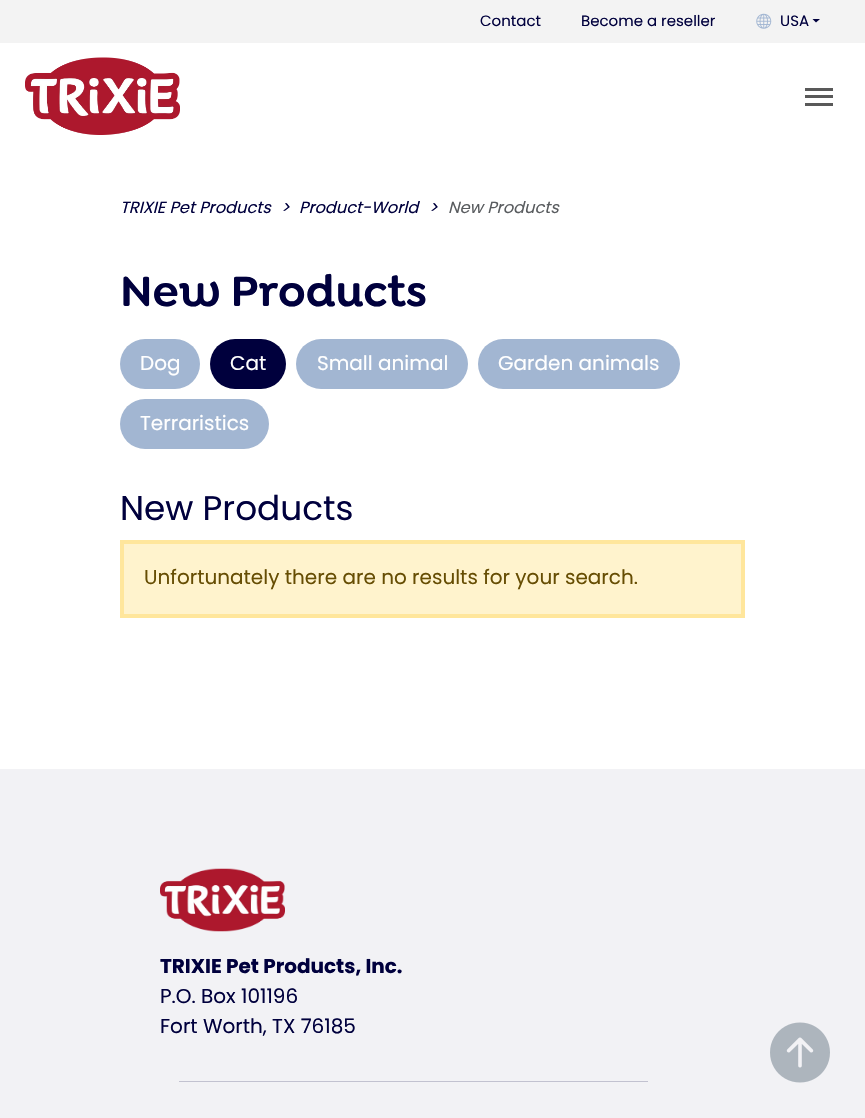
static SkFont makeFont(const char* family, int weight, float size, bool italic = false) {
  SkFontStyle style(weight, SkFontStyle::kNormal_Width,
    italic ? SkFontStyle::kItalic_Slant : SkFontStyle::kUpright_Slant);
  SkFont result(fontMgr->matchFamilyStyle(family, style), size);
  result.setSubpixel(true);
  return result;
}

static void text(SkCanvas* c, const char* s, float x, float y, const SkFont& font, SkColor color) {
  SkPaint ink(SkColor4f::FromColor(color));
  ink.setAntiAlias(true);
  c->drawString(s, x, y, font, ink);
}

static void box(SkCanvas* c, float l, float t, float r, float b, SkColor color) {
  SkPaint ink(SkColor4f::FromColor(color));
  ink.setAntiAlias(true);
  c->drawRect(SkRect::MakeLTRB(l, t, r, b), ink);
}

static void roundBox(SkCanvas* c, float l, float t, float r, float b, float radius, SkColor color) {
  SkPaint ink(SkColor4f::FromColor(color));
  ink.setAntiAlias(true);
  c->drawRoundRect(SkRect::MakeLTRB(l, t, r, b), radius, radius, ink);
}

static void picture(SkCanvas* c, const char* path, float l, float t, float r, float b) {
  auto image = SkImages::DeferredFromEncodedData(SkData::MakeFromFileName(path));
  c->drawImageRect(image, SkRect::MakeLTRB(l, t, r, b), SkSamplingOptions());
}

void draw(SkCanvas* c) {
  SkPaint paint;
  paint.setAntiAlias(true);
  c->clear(0xffffffff);
  box(c, 0, 0, 865, 43, 0xfff3f3f3);
  SkFont face1 = makeFont("Poppins", 400, 15);
  text(c, "Contact", 480, 26, face1, 0xff00003d);
  text(c, "Become a reseller", 581, 26, face1, 0xff00003d);
  picture(c, "img_01.png", 756, 13, 772, 29);
  text(c, "USA", 780, 26, face1, 0xff00003d);
  paint.setColor(0xff00003d);
  c->drawPath(SkPathBuilder().moveTo(812.5f, 19).lineTo(820, 19).lineTo(816, 22.5f).close().detach(), paint);
  picture(c, "img_02.png", 25, 57, 180, 135);
  box(c, 805, 95, 833, 98, 0xff595959);
  box(c, 805, 88, 833, 91, 0xff595959);
  box(c, 805, 103, 833, 106, 0xff595959);
  box(c, 0, 769, 865, 1118, 0xfff2f2f5);
  picture(c, "img_03.png", 770, 1022, 830, 1083);
  SkFont face2 = makeFont("Poppins", 400, 16.25f, true);
  text(c, "TRIXIE Pet Products", 120, 213, face2, 0xff00003d);
  text(c, ">", 281, 213, face2, 0xff00003d);
  text(c, "Product-World", 299, 213, face2, 0xff00003d);
  text(c, ">", 429, 213, face2, 0xff00003d);
  text(c, "New Products", 448, 213, face2, 0xff595c5f);
  SkFont face3 = makeFont("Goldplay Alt", 600, 45);
  text(c, "New Products", 120, 306, face3, 0xff00003d);
  roundBox(c, 120, 339, 200, 389, 25, 0xffa2b6d2);
  SkFont face4 = makeFont("Poppins", 400, 20);
  text(c, "Dog", 140, 370, face4, 0xffffffff);
  roundBox(c, 210, 339, 286, 389, 25, 0xff00003d);
  text(c, "Cat", 230, 370, face4, 0xffffffff);
  roundBox(c, 296, 339, 468, 389, 25, 0xffa2b6d2);
  text(c, "Small animal", 317, 370, face4, 0xffffffff);
  roundBox(c, 478, 339, 680, 389, 25, 0xffa2b6d2);
  text(c, "Garden animals", 498, 370, face4, 0xffffffff);
  roundBox(c, 120, 399, 269, 449, 25, 0xffa2b6d2);
  text(c, "Terraristics", 140, 430, face4, 0xffffffff);
  SkFont face5 = makeFont("Poppins", 400, 34.25f);
  text(c, "New Products", 120, 520, face5, 0xff00003d);
  paint.setColor(0xfffff3cd);
  c->drawRect(SkRect::MakeLTRB(122, 542, 743, 616), paint);
  paint.setStyle(SkPaint::kStroke_Style);
  paint.setStrokeWidth(4);
  paint.setColor(0xffffe69c);
  c->drawRect(SkRect::MakeLTRB(122, 542, 743, 616), paint);
  text(c, "Unfortunately there are no results for your search.", 144, 584, face4, 0xff664d03);
  picture(c, "img_04.png", 160, 868, 285, 932);
  SkFont face6 = makeFont("Poppins", 700, 20);
  text(c, "TRIXIE Pet Products, Inc.", 160, 973, face6, 0xff00003d);
  text(c, "P.O. Box 101196", 160, 1003, face4, 0xff00003d);
  text(c, "Fort Worth, TX 76185", 160, 1033, face4, 0xff00003d);
  box(c, 179, 1081, 648, 1082, 0xffc2c2d0);
}
